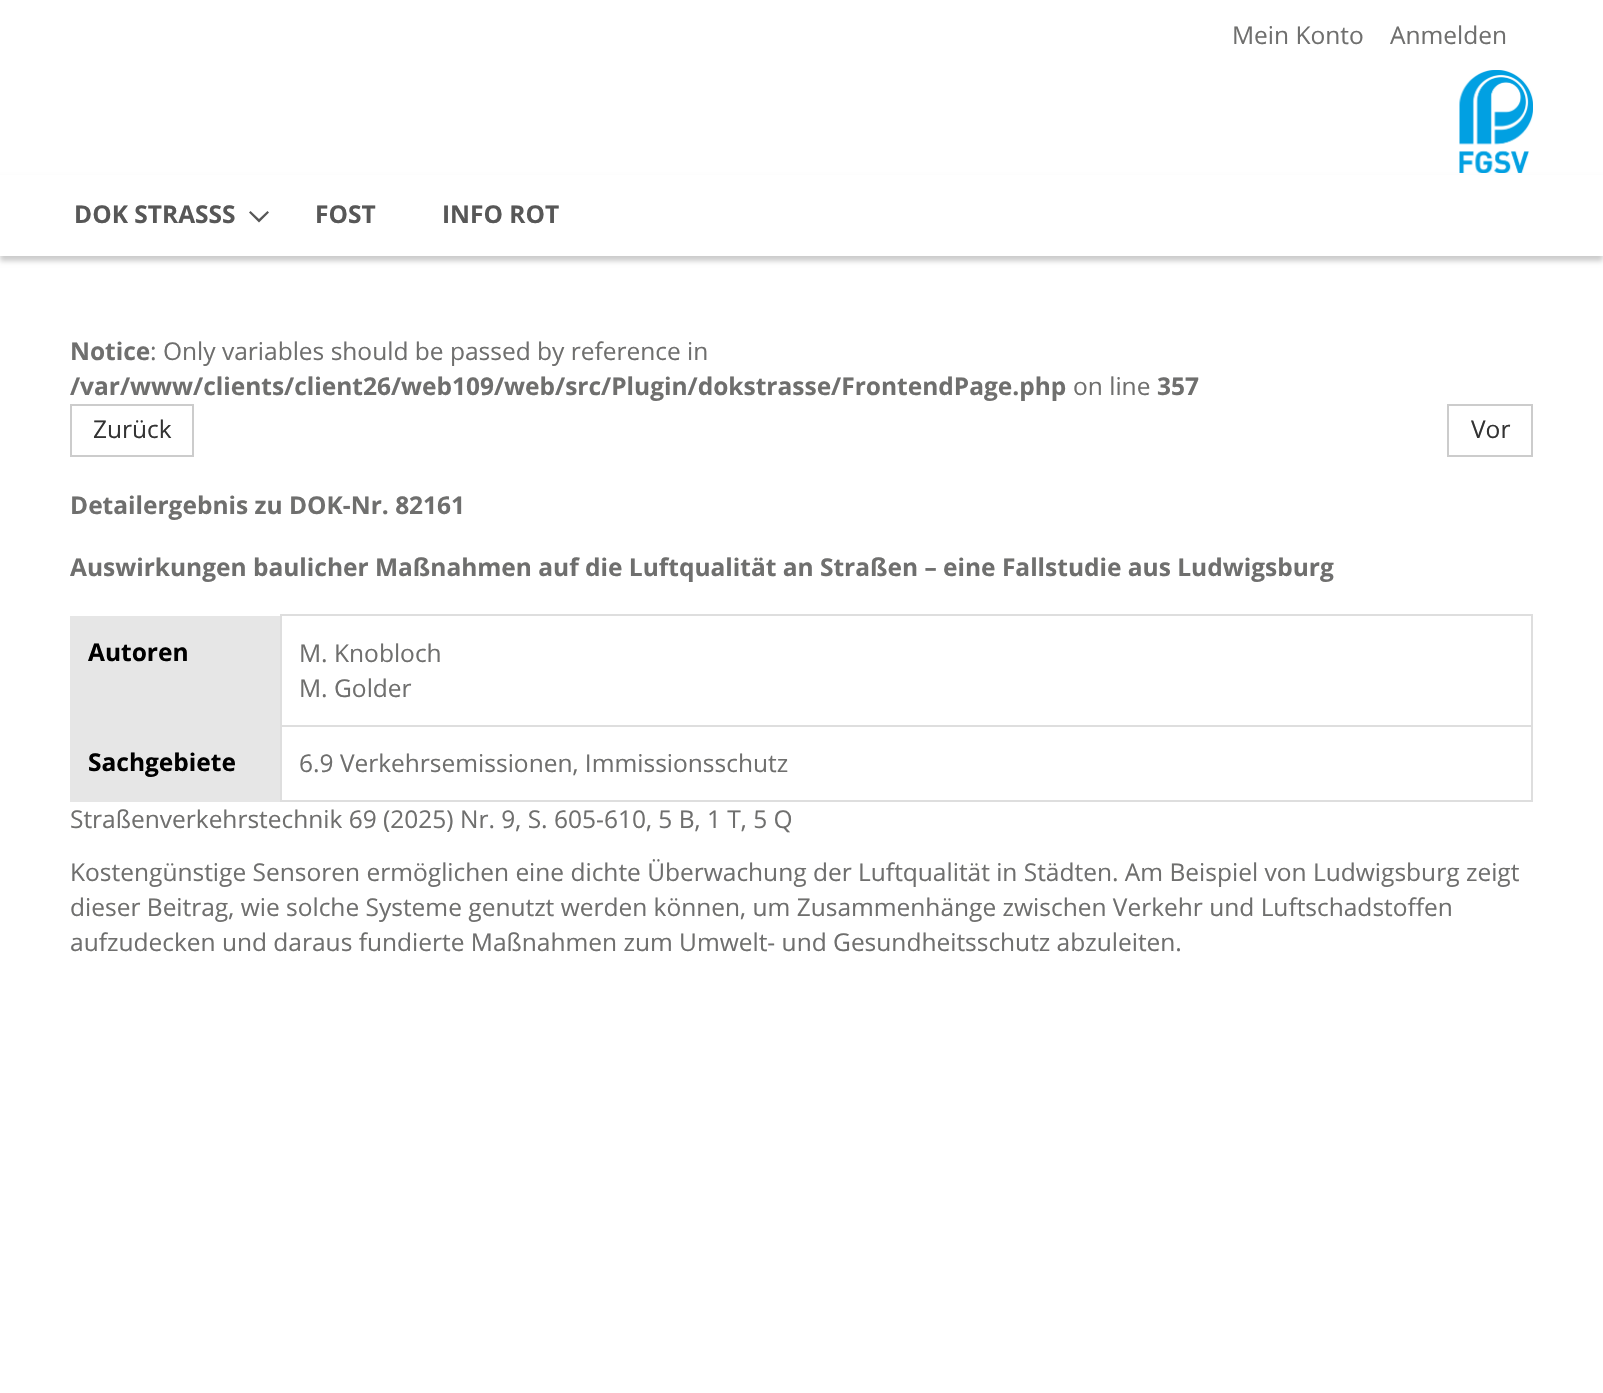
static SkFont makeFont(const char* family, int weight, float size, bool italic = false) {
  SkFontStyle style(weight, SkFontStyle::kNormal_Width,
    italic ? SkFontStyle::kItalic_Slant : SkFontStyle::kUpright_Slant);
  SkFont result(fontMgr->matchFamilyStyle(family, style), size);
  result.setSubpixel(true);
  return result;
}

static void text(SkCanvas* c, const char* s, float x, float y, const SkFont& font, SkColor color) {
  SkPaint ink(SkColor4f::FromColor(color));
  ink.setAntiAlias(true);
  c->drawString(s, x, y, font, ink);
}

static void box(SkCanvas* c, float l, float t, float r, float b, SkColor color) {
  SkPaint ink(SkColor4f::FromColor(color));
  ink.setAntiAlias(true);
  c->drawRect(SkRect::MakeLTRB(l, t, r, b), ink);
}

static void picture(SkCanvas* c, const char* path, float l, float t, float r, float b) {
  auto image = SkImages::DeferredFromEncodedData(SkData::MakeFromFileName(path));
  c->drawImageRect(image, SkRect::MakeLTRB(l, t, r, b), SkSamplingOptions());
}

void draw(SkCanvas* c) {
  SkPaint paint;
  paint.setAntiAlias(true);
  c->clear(0xffffffff);
  SkFont face1 = makeFont("Open Sans", 400, 24.5f);
  text(c, "Mein Konto", 1232, 44, face1, 0xff6f6f6e);
  text(c, "Anmelden", 1390, 44, face1, 0xff6f6f6e);
  picture(c, "img_01.png", 1459, 70, 1533, 173);
  paint.setColor(0x33000000);
  paint.setMaskFilter(SkMaskFilter::MakeBlur(kNormal_SkBlurStyle, 2.5f));
  c->drawRect(SkRect::MakeLTRB(0, 179, 1603, 261), paint);
  paint.setMaskFilter(nullptr);
  box(c, 0, 175, 1603, 256, 0xffffffff);
  SkFont face2 = makeFont("Open Sans", 700, 24.5f);
  text(c, "DOK STRASSS", 74, 223, face2, 0xff575757);
  paint.setColor(0xff575757);
  c->drawPath(SkPathBuilder().moveTo(259, 219).lineTo(250.5f, 211).lineTo(249, 212.5f).lineTo(259, 222.5f).lineTo(269, 212.5f).lineTo(267.5f, 211).close().detach(), paint);
  text(c, "FOST", 315, 223, face2, 0xff575757);
  text(c, "INFO ROT", 442, 223, face2, 0xff575757);
  text(c, "Notice", 70, 360, face2, 0xff6f6f6e);
  text(c, ": Only variables should be passed by reference in", 150, 360, face1, 0xff6f6f6e);
  text(c, "/var/www/clients/client26/web109/web/src/Plugin/dokstrasse/FrontendPage.php", 70, 395, face2, 0xff6f6f6e);
  text(c, "on line", 1073, 395, face1, 0xff6f6f6e);
  text(c, "357", 1157, 395, face2, 0xff6f6f6e);
  paint.setStyle(SkPaint::kStroke_Style);
  paint.setStrokeWidth(2);
  paint.setColor(0xffcccccc);
  c->drawRect(SkRect::MakeLTRB(71, 405, 193, 456), paint);
  text(c, "Zurück", 93, 438, face1, 0xff333333);
  c->drawRect(SkRect::MakeLTRB(1448, 405, 1532, 456), paint);
  text(c, "Vor", 1471, 438, face1, 0xff333333);
  text(c, "Detailergebnis zu DOK-Nr. 82161", 70, 514, face2, 0xff6f6f6e);
  text(c, "Auswirkungen baulicher Maßnahmen auf die Luftqualität an Straßen – eine Fallstudie aus Ludwigsburg", 70, 576, face2, 0xff6f6f6e);
  box(c, 70, 616, 280, 802, 0xffe6e6e6);
  text(c, "Autoren", 88, 661, face2, 0xff000000);
  box(c, 280, 614, 1533, 616, 0xffdedede);
  box(c, 280, 725, 1533, 727, 0xffdedede);
  box(c, 1531, 725, 1533, 802, 0xffdedede);
  box(c, 1531, 614, 1533, 726, 0xffdedede);
  box(c, 280, 800, 1533, 802, 0xffdedede);
  box(c, 280, 725, 282, 802, 0xffdedede);
  box(c, 280, 614, 282, 726, 0xffdedede);
  text(c, "M. Knobloch", 299, 662, face1, 0xff6f6f6e);
  text(c, "M. Golder", 299, 697, face1, 0xff6f6f6e);
  text(c, "Sachgebiete", 88, 771, face2, 0xff000000);
  text(c, "6.9 Verkehrsemissionen, Immissionsschutz", 299, 772, face1, 0xff6f6f6e);
  text(c, "Straßenverkehrstechnik 69 (2025) Nr. 9, S. 605-610, 5 B, 1 T, 5 Q", 70, 828, face1, 0xff6f6f6e);
  text(c, "Kostengünstige Sensoren ermöglichen eine dichte Überwachung der Luftqualität in Städten. Am Beispiel von Ludwigsburg zeigt", 70, 881, face1, 0xff6f6f6e);
  text(c, "dieser Beitrag, wie solche Systeme genutzt werden können, um Zusammenhänge zwischen Verkehr und Luftschadstoffen", 70, 916, face1, 0xff6f6f6e);
  text(c, "aufzudecken und daraus fundierte Maßnahmen zum Umwelt- und Gesundheitsschutz abzuleiten.", 70, 951, face1, 0xff6f6f6e);
}
